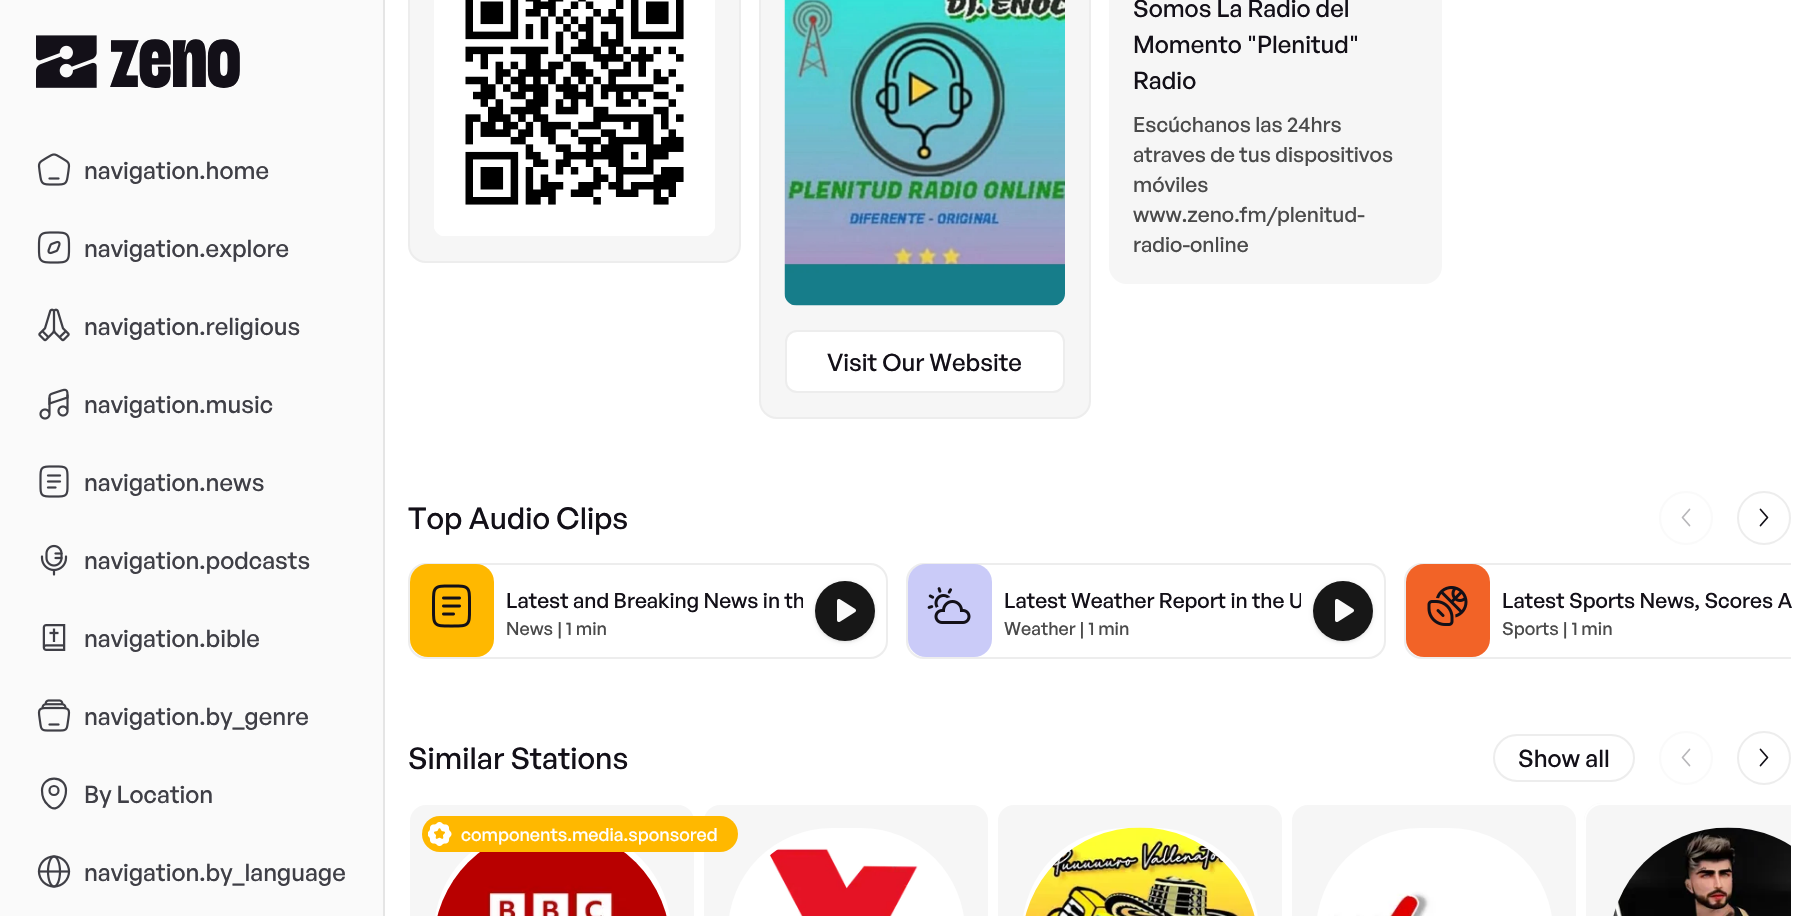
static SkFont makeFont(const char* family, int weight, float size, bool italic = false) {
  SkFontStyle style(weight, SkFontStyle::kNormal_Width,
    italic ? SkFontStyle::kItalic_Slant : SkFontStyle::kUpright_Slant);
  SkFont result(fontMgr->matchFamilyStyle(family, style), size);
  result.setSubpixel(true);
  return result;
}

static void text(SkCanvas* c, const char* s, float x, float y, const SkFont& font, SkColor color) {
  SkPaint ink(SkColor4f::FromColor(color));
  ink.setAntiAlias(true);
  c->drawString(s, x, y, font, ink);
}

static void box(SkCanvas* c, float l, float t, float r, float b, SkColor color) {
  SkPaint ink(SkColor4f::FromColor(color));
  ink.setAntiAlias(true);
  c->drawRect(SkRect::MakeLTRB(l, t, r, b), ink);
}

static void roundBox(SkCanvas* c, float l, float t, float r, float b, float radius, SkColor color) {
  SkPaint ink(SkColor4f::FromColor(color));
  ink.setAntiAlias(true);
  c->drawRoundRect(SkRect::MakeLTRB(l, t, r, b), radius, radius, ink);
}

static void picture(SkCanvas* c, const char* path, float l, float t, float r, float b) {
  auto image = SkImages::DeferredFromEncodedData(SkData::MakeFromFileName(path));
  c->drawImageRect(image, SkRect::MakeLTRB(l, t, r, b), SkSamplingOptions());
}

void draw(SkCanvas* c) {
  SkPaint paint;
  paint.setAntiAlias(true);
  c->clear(0xffffffff);
  box(c, 383, 0, 385, 916, 0xffe5e5e5);
  box(c, 0, 0, 383, 916, 0xfffafafa);
  picture(c, "img_01.png", 36, 35, 97, 88);
  SkFont face1 = makeFont("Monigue", 400, 90);
  text(c, "zeno", 110, 87, face1, 0xff131018);
  picture(c, "img_02.png", 37, 153, 71, 186);
  SkFont face2 = makeFont("General Sans", 500, 24);
  text(c, "navigation.home", 84, 179, face2, 0xff3f3f46);
  picture(c, "img_03.png", 37, 231, 71, 264);
  text(c, "navigation.explore", 84, 257, face2, 0xff3f3f46);
  picture(c, "img_04.png", 38, 308, 70, 342);
  text(c, "navigation.religious", 84, 335, face2, 0xff3f3f46);
  picture(c, "img_05.png", 39, 388, 69, 420);
  text(c, "navigation.music", 84, 413, face2, 0xff3f3f46);
  picture(c, "img_06.png", 39, 465, 69, 498);
  text(c, "navigation.news", 84, 491, face2, 0xff3f3f46);
  picture(c, "img_07.png", 40, 544, 68, 576);
  text(c, "navigation.podcasts", 84, 569, face2, 0xff3f3f46);
  picture(c, "img_08.png", 42, 624, 66, 651);
  text(c, "navigation.bible", 84, 647, face2, 0xff3f3f46);
  picture(c, "img_09.png", 37, 699, 71, 732);
  text(c, "navigation.by_genre", 84, 725, face2, 0xff3f3f46);
  paint.setStyle(SkPaint::kStroke_Style);
  paint.setStrokeWidth(2.2f);
  paint.setColor(0xff3f3f46);
  c->drawPath(SkPathBuilder().moveTo(42, 790.5f).cubicTo(42, 775, 66, 774.5f, 66, 790.5f).cubicTo(66, 795, 64.5f, 799.5f, 62, 803).cubicTo(57.5f, 809, 53, 810.5f, 48, 805).cubicTo(44, 801.5f, 42, 796, 42, 790.5f).close().detach(), paint);
  c->drawCircle(54, 790.5f, 4.5f, paint);
  text(c, "By Location", 84, 803, face2, 0xff3f3f46);
  picture(c, "img_10.png", 37, 855, 71, 888);
  text(c, "navigation.by_language", 84, 881, face2, 0xff3f3f46);
  paint.setStyle(SkPaint::kFill_Style);
  paint.setColor(0xfff6f6f6);
  c->drawRoundRect(SkRect::MakeLTRB(409, -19, 740, 262), 17, 17, paint);
  paint.setStyle(SkPaint::kStroke_Style);
  paint.setStrokeWidth(2);
  paint.setColor(0xffededed);
  c->drawRoundRect(SkRect::MakeLTRB(409, -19, 740, 262), 17, 17, paint);
  picture(c, "img_11.png", 434, 0, 715, 236);
  roundBox(c, 1109, -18, 1442, 284, 18, 0xfff6f6f6);
  text(c, "Somos La Radio del", 1133, 17, face2, 0xff131018);
  text(c, "Momento \"Plenitud\"", 1133, 53, face2, 0xff131018);
  text(c, "Radio", 1133, 89, face2, 0xff131018);
  SkFont face3 = makeFont("General Sans", 500, 21);
  text(c, "Escúchanos las 24hrs", 1133, 132, face3, 0xff4a4a4a);
  text(c, "atraves de tus dispositivos", 1133, 162, face3, 0xff4a4a4a);
  text(c, "móviles", 1133, 192, face3, 0xff4a4a4a);
  text(c, "www.zeno.fm/plenitud-", 1133, 222, face3, 0xff4a4a4a);
  text(c, "radio-online", 1133, 252, face3, 0xff4a4a4a);
  paint.setStyle(SkPaint::kFill_Style);
  paint.setColor(0xfff6f6f6);
  c->drawRoundRect(SkRect::MakeLTRB(760, -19, 1090, 418), 17, 17, paint);
  paint.setStyle(SkPaint::kStroke_Style);
  paint.setColor(0xffededed);
  c->drawRoundRect(SkRect::MakeLTRB(760, -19, 1090, 418), 17, 17, paint);
  picture(c, "img_12.png", 784, 0, 1065, 306);
  paint.setStyle(SkPaint::kFill_Style);
  paint.setColor(0xffffffff);
  c->drawRoundRect(SkRect::MakeLTRB(786, 331, 1064, 392), 11, 11, paint);
  paint.setStyle(SkPaint::kStroke_Style);
  paint.setColor(0xffededed);
  c->drawRoundRect(SkRect::MakeLTRB(786, 331, 1064, 392), 11, 11, paint);
  text(c, "Visit Our Website", 827, 371, face2, 0xff131018);
  SkFont face4 = makeFont("General Sans", 500, 30);
  text(c, "Top Audio Clips", 408, 529, face4, 0xff131018);
  paint.setColor(0xfffafafa);
  c->drawCircle(1686, 518, 26, paint);
  paint.setStrokeWidth(1.7f);
  paint.setStrokeCap(SkPaint::kRound_Cap);
  paint.setStrokeJoin(SkPaint::kRound_Join);
  paint.setColor(0xffb8b7ba);
  c->drawPath(SkPathBuilder().moveTo(1689.5f, 509.5f).lineTo(1682.5f, 517.5f).lineTo(1689.5f, 525.5f).detach(), paint);
  paint.setStrokeWidth(2);
  paint.setStrokeCap(SkPaint::kButt_Cap);
  paint.setStrokeJoin(SkPaint::kMiter_Join);
  paint.setColor(0xffededed);
  c->drawCircle(1764, 518, 26, paint);
  paint.setStrokeWidth(1.7f);
  paint.setStrokeCap(SkPaint::kRound_Cap);
  paint.setStrokeJoin(SkPaint::kRound_Join);
  paint.setColor(0xff131018);
  c->drawPath(SkPathBuilder().moveTo(1760.5f, 509.5f).lineTo(1767.5f, 517.5f).lineTo(1760.5f, 525.5f).detach(), paint);
  paint.setStrokeWidth(2);
  paint.setStrokeCap(SkPaint::kButt_Cap);
  paint.setStrokeJoin(SkPaint::kMiter_Join);
  paint.setColor(0xffededed);
  c->drawRoundRect(SkRect::MakeLTRB(409, 564, 887, 658), 17, 17, paint);
  roundBox(c, 410, 564, 494, 657, 18, 0xffffb800);
  picture(c, "img_13.png", 432, 584, 471, 628);
  c->save();
  c->clipRect(SkRect::MakeLTRB(506, 581, 803, 617));
  text(c, "Latest and Breaking News in th", 506, 608, face3, 0xff131018);
  c->restore();
  SkFont face5 = makeFont("General Sans", 500, 18);
  text(c, "News | 1 min", 506, 635, face5, 0xff4a4a4a);
  paint.setStyle(SkPaint::kFill_Style);
  paint.setColor(0x1a000000);
  paint.setMaskFilter(SkMaskFilter::MakeBlur(kNormal_SkBlurStyle, 1.5f));
  c->drawRoundRect(SkRect::MakeLTRB(816, 584, 873, 641), 28.5f, 28.5f, paint);
  paint.setMaskFilter(nullptr);
  paint.setMaskFilter(SkMaskFilter::MakeBlur(kNormal_SkBlurStyle, 2));
  c->drawRoundRect(SkRect::MakeLTRB(815, 582, 875, 642), 30, 30, paint);
  paint.setMaskFilter(nullptr);
  paint.setColor(0xff171717);
  c->drawCircle(845, 611, 30, paint);
  picture(c, "img_14.png", 837, 599, 856, 622);
  paint.setStyle(SkPaint::kStroke_Style);
  paint.setColor(0xffededed);
  c->drawRoundRect(SkRect::MakeLTRB(907, 564, 1385, 658), 17, 17, paint);
  roundBox(c, 908, 564, 992, 657, 18, 0xffcacbf8);
  picture(c, "img_15.png", 927, 587, 971, 624);
  c->save();
  c->clipRect(SkRect::MakeLTRB(1004, 581, 1301, 617));
  text(c, "Latest Weather Report in the U", 1004, 608, face3, 0xff131018);
  c->restore();
  text(c, "Weather | 1 min", 1004, 635, face5, 0xff4a4a4a);
  paint.setStyle(SkPaint::kFill_Style);
  paint.setColor(0x1a000000);
  paint.setMaskFilter(SkMaskFilter::MakeBlur(kNormal_SkBlurStyle, 1.5f));
  c->drawRoundRect(SkRect::MakeLTRB(1314, 584, 1371, 641), 28.5f, 28.5f, paint);
  paint.setMaskFilter(nullptr);
  paint.setMaskFilter(SkMaskFilter::MakeBlur(kNormal_SkBlurStyle, 2));
  c->drawRoundRect(SkRect::MakeLTRB(1313, 582, 1373, 642), 30, 30, paint);
  paint.setMaskFilter(nullptr);
  paint.setColor(0xff171717);
  c->drawCircle(1343, 611, 30, paint);
  picture(c, "img_14.png", 1335, 599, 1354, 622);
  c->save();
  c->clipRect(SkRect::MakeLTRB(408, 563, 1791, 659));
  paint.setStyle(SkPaint::kStroke_Style);
  paint.setColor(0xffededed);
  c->drawRoundRect(SkRect::MakeLTRB(1405, 564, 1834, 658), 17, 17, paint);
  c->restore();
  roundBox(c, 1406, 564, 1490, 657, 18, 0xfff26327);
  picture(c, "img_16.png", 1427, 586, 1468, 626);
  text(c, "Latest Sports News, Scores A", 1502, 608, face3, 0xff131018);
  text(c, "Sports | 1 min", 1502, 635, face5, 0xff4a4a4a);
  text(c, "Similar Stations", 408, 769, face4, 0xff131018);
  c->drawRoundRect(SkRect::MakeLTRB(1494, 735, 1634, 781), 23, 23, paint);
  text(c, "Show all", 1518, 767, face2, 0xff131018);
  paint.setColor(0xfffafafa);
  c->drawCircle(1686, 758, 26, paint);
  paint.setStrokeWidth(1.7f);
  paint.setStrokeCap(SkPaint::kRound_Cap);
  paint.setStrokeJoin(SkPaint::kRound_Join);
  paint.setColor(0xffb8b7ba);
  c->drawPath(SkPathBuilder().moveTo(1689.5f, 749.5f).lineTo(1682.5f, 757.5f).lineTo(1689.5f, 765.5f).detach(), paint);
  paint.setStrokeWidth(2);
  paint.setStrokeCap(SkPaint::kButt_Cap);
  paint.setStrokeJoin(SkPaint::kMiter_Join);
  paint.setColor(0xffededed);
  c->drawCircle(1764, 758, 26, paint);
  paint.setStrokeWidth(1.7f);
  paint.setStrokeCap(SkPaint::kRound_Cap);
  paint.setStrokeJoin(SkPaint::kRound_Join);
  paint.setColor(0xff131018);
  c->drawPath(SkPathBuilder().moveTo(1760.5f, 749.5f).lineTo(1767.5f, 757.5f).lineTo(1760.5f, 765.5f).detach(), paint);
  paint.setStyle(SkPaint::kFill_Style);
  paint.setColor(0xfff6f6f6);
  c->drawRoundRect(SkRect::MakeLTRB(409, 804, 695, 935), 17, 17, paint);
  paint.setStyle(SkPaint::kStroke_Style);
  paint.setStrokeWidth(2);
  paint.setStrokeCap(SkPaint::kButt_Cap);
  paint.setStrokeJoin(SkPaint::kMiter_Join);
  paint.setColor(0xffffffff);
  c->drawRoundRect(SkRect::MakeLTRB(409, 804, 695, 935), 17, 17, paint);
  roundBox(c, 434, 828, 671, 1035, 118.5f, 0xffffffff);
  picture(c, "img_17.png", 437, 852, 667, 916);
  paint.setStyle(SkPaint::kFill_Style);
  paint.setColor(0xfff6f6f6);
  c->drawRoundRect(SkRect::MakeLTRB(703, 804, 989, 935), 17, 17, paint);
  paint.setStyle(SkPaint::kStroke_Style);
  paint.setColor(0xffffffff);
  c->drawRoundRect(SkRect::MakeLTRB(703, 804, 989, 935), 17, 17, paint);
  roundBox(c, 728, 828, 965, 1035, 118.5f, 0xffffffff);
  roundBox(c, 422, 816, 738, 852, 18, 0xffffb800);
  picture(c, "img_18.png", 428, 822, 452, 846);
  text(c, "components.media.sponsored", 461, 841, face5, 0xffffffff);
  picture(c, "img_19.png", 769, 848, 918, 916);
  paint.setStyle(SkPaint::kFill_Style);
  paint.setColor(0xfff6f6f6);
  c->drawRoundRect(SkRect::MakeLTRB(997, 804, 1283, 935), 17, 17, paint);
  paint.setStyle(SkPaint::kStroke_Style);
  paint.setColor(0xffffffff);
  c->drawRoundRect(SkRect::MakeLTRB(997, 804, 1283, 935), 17, 17, paint);
  roundBox(c, 1022, 828, 1259, 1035, 118.5f, 0xffffffff);
  picture(c, "img_20.png", 1025, 827, 1255, 916);
  paint.setStyle(SkPaint::kFill_Style);
  paint.setColor(0xfff6f6f6);
  c->drawRoundRect(SkRect::MakeLTRB(1291, 804, 1577, 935), 17, 17, paint);
  paint.setStyle(SkPaint::kStroke_Style);
  paint.setColor(0xffffffff);
  c->drawRoundRect(SkRect::MakeLTRB(1291, 804, 1577, 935), 17, 17, paint);
  roundBox(c, 1316, 828, 1553, 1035, 118.5f, 0xffffffff);
  picture(c, "img_21.png", 1320, 828, 1471, 916);
  paint.setStyle(SkPaint::kFill_Style);
  paint.setColor(0xfff6f6f6);
  c->drawPath(SkPathBuilder().moveTo(1602, 803).lineTo(1791, 803).lineTo(1791, 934).lineTo(1602, 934).cubicTo(1592, 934, 1584, 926, 1584, 916).lineTo(1584, 821).cubicTo(1584, 811, 1592, 803, 1602, 803).close().detach(), paint);
  c->save();
  c->clipRect(SkRect::MakeLTRB(408, 803, 1791, 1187));
  paint.setStyle(SkPaint::kStroke_Style);
  paint.setColor(0xffffffff);
  c->drawRoundRect(SkRect::MakeLTRB(1585, 804, 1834, 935), 17, 17, paint);
  c->restore();
  picture(c, "img_22.png", 1613, 827, 1791, 916);
}
